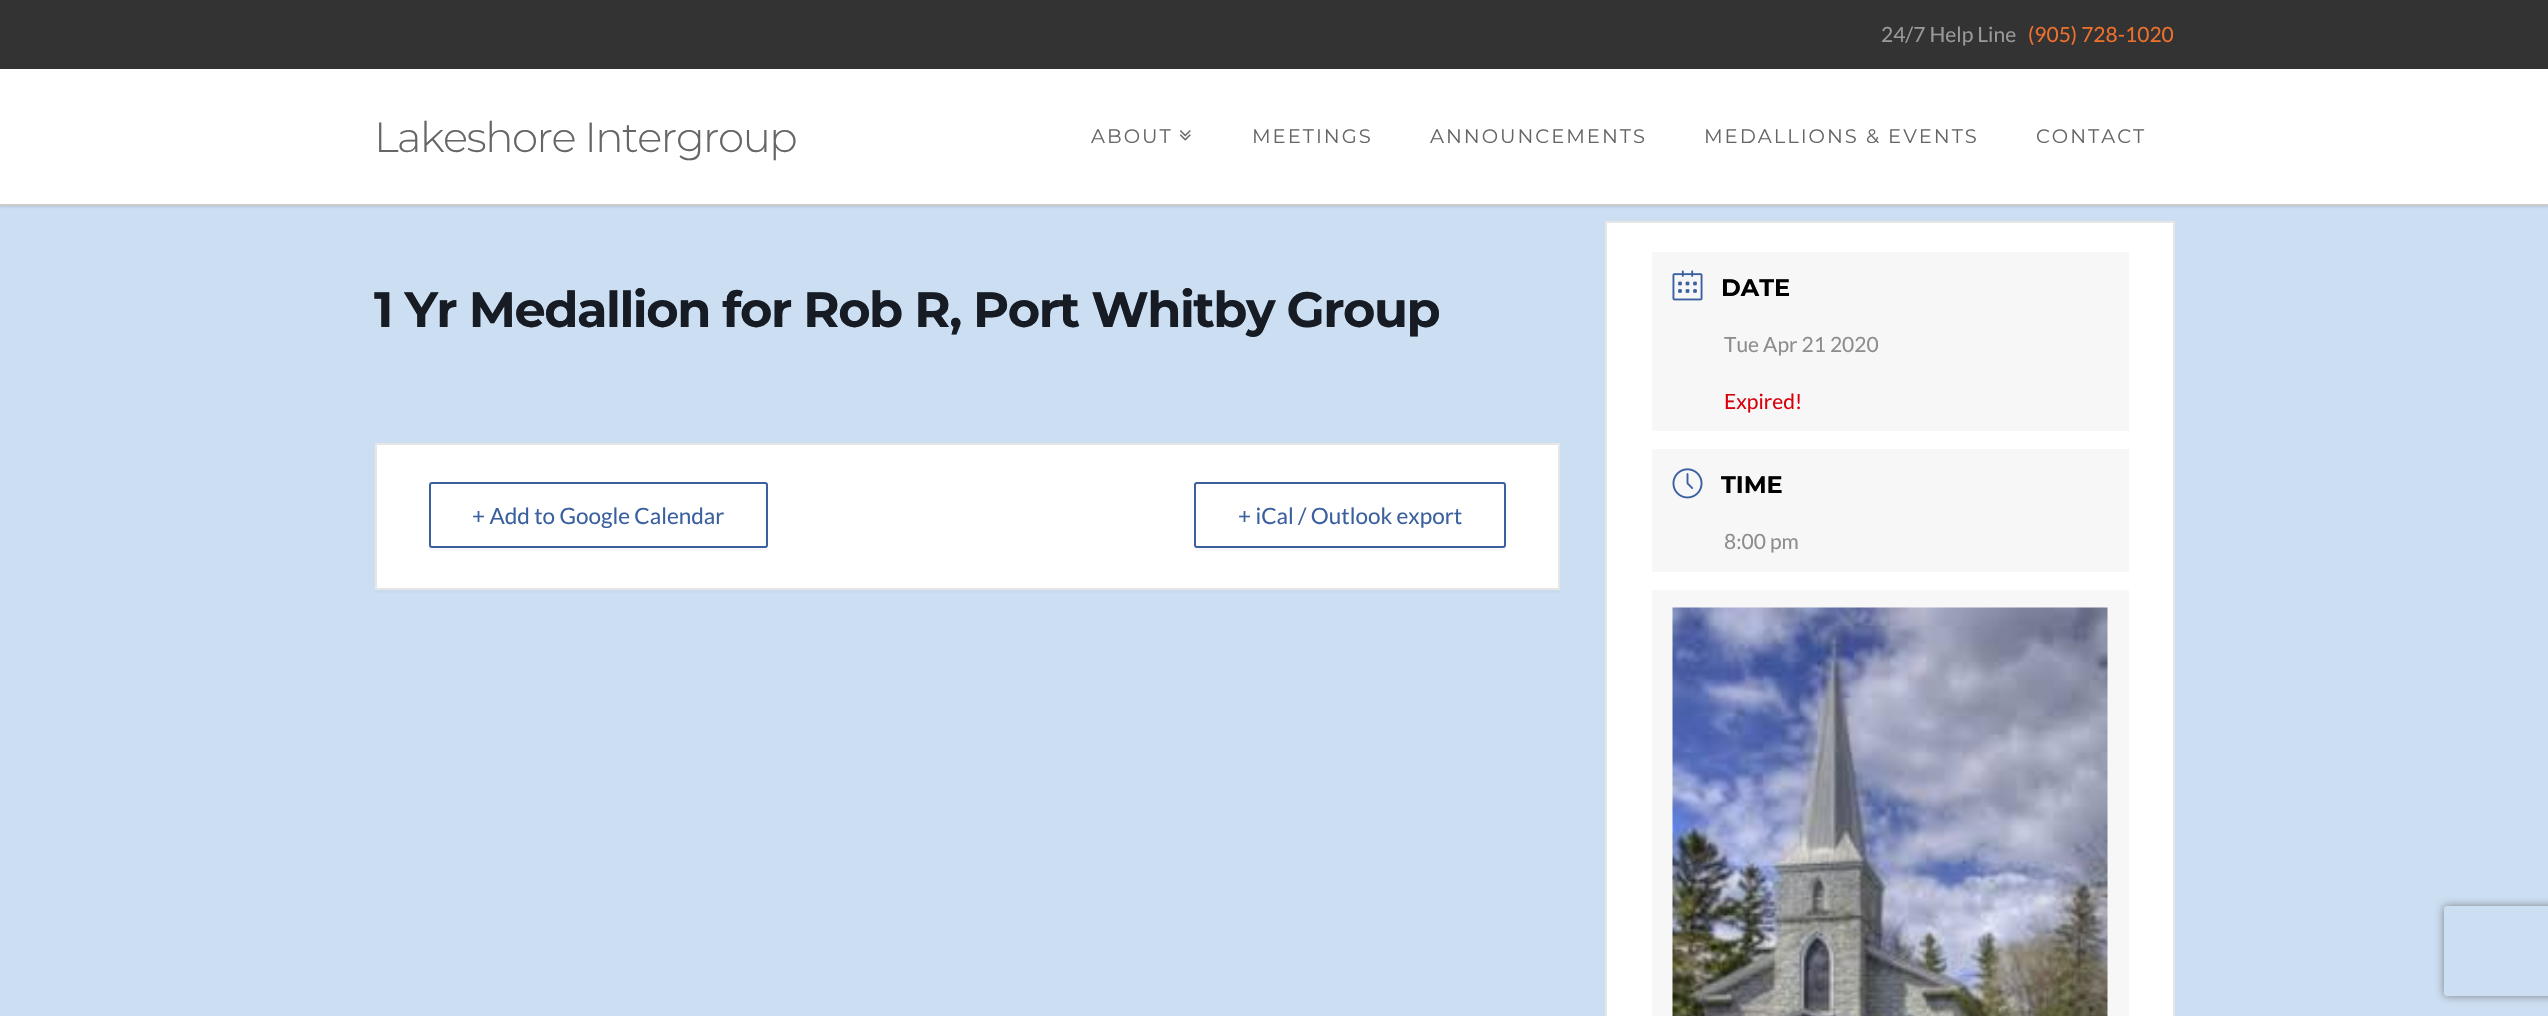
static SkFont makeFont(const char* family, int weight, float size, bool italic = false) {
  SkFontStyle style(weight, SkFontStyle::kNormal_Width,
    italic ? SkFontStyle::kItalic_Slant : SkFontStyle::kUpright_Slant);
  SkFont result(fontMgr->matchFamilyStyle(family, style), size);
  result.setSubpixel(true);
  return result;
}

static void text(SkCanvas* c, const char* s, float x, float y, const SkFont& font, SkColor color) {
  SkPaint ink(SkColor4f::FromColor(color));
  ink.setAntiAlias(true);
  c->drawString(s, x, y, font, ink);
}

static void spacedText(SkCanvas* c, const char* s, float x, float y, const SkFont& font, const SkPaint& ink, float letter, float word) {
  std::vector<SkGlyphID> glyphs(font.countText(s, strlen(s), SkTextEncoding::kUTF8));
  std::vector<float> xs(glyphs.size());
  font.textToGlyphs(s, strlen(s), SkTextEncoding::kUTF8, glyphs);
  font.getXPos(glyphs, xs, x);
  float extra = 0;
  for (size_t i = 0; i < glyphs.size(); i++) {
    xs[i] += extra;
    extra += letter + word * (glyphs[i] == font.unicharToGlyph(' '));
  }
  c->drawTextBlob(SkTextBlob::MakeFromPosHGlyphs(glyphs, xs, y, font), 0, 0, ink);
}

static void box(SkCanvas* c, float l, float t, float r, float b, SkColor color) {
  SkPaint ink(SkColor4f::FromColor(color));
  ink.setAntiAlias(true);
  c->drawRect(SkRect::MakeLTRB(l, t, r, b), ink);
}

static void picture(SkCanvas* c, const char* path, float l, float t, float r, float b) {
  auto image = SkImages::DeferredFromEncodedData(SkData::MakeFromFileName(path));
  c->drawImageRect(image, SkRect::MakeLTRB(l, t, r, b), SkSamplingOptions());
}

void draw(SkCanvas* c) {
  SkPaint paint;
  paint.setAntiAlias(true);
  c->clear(0xffcbdef2);
  paint.setColor(0x33000000);
  paint.setMaskFilter(SkMaskFilter::MakeBlur(kNormal_SkBlurStyle, 1.5f));
  c->drawRect(SkRect::MakeLTRB(0, 69, 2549, 206), paint);
  paint.setMaskFilter(nullptr);
  box(c, 0, 0, 2548, 69, 0xff333333);
  SkFont face1 = makeFont("Lato", 400, 21);
  text(c, "24/7 Help Line", 1881, 42, face1, 0xff999999);
  text(c, "(905) 728-1020", 2028, 42, face1, 0xffed702d);
  box(c, 0, 69, 2548, 204, 0xffffffff);
  box(c, 0, 204, 2548, 206, 0xffcccccc);
  SkFont face2 = makeFont("Montserrat", 300, 42);
  paint.setColor(0xff666666);
  spacedText(c, "Lakeshore Intergroup", 374, 152, face2, paint, -1.5f, 0);
  SkFont face3 = makeFont("Montserrat", 400, 19.5f);
  spacedText(c, "ABOUT", 1091, 143, face3, paint, 2, 0);
  picture(c, "img_01.png", 1179, 130, 1191, 141);
  spacedText(c, "MEETINGS", 1252, 143, face3, paint, 2, 0);
  spacedText(c, "ANNOUNCEMENTS", 1430, 143, face3, paint, 2, 0);
  spacedText(c, "MEDALLIONS & EVENTS", 1704, 143, face3, paint, 2, 0);
  spacedText(c, "CONTACT", 2036, 143, face3, paint, 2, 0);
  SkFont face4 = makeFont("Montserrat", 700, 49.5f);
  paint.setColor(0xff171c24);
  spacedText(c, "1 Yr Medallion for Rob R, Port Whitby Group", 374, 327, face4, paint, -1.5f, 0);
  box(c, 375, 590, 1560, 593, 0xffc8daee);
  paint.setColor(0xffffffff);
  c->drawRect(SkRect::MakeLTRB(376, 444, 1559, 589), paint);
  paint.setStyle(SkPaint::kStroke_Style);
  paint.setStrokeWidth(2);
  paint.setColor(0xffe6e6e6);
  c->drawRect(SkRect::MakeLTRB(376, 444, 1559, 589), paint);
  paint.setStyle(SkPaint::kFill_Style);
  paint.setColor(0xfff7f7f7);
  c->drawPath(SkPathBuilder().moveTo(429, 544).cubicTo(429, 547, 428, 551, 432, 551).lineTo(765, 551).cubicTo(769, 551, 768, 547, 768, 544).cubicTo(768, 546, 767, 548, 765, 548).lineTo(432, 548).cubicTo(430, 548, 429, 546, 429, 544).close().detach(), paint);
  paint.setColor(0xffffffff);
  c->drawRoundRect(SkRect::MakeLTRB(430, 483, 767, 547), 2, 2, paint);
  paint.setStyle(SkPaint::kStroke_Style);
  paint.setColor(0xff3a609f);
  c->drawRoundRect(SkRect::MakeLTRB(430, 483, 767, 547), 2, 2, paint);
  SkFont face5 = makeFont("Lato", 400, 22.5f);
  text(c, "+ Add to Google Calendar", 472, 524, face5, 0xff3a609f);
  paint.setStyle(SkPaint::kFill_Style);
  paint.setColor(0xfff7f7f7);
  c->drawPath(SkPathBuilder().moveTo(1194, 544).cubicTo(1194, 547, 1193, 550, 1196, 551).lineTo(1503, 551).cubicTo(1507, 551, 1506, 547, 1506, 544).cubicTo(1506, 546, 1505, 548, 1503, 548).lineTo(1197, 548).cubicTo(1195, 548, 1194, 546, 1194, 544).close().detach(), paint);
  paint.setColor(0xffffffff);
  c->drawRoundRect(SkRect::MakeLTRB(1195, 483, 1505, 547), 2, 2, paint);
  paint.setStyle(SkPaint::kStroke_Style);
  paint.setColor(0xff3a609f);
  c->drawRoundRect(SkRect::MakeLTRB(1195, 483, 1505, 547), 2, 2, paint);
  text(c, "+ iCal / Outlook export", 1238, 524, face5, 0xff3a609f);
  paint.setStyle(SkPaint::kFill_Style);
  paint.setColor(0xffffffff);
  c->drawRect(SkRect::MakeLTRB(1606, 222, 2174, 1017), paint);
  paint.setStyle(SkPaint::kStroke_Style);
  paint.setColor(0xffe6e6e6);
  c->drawRect(SkRect::MakeLTRB(1606, 222, 2174, 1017), paint);
  box(c, 1652, 252, 2129, 431, 0xfff7f7f7);
  picture(c, "img_02.png", 1672, 270, 1703, 301);
  SkFont face6 = makeFont("Montserrat", 700, 24);
  text(c, "DATE", 1721, 296, face6, 0xff000000);
  text(c, "Tue Apr 21 2020", 1724, 352, face1, 0xff8d8d8d);
  text(c, "Expired!", 1724, 409, face1, 0xffd8000c);
  box(c, 1652, 449, 2129, 572, 0xfff7f7f7);
  picture(c, "img_03.png", 1672, 468, 1703, 499);
  text(c, "TIME", 1721, 493, face6, 0xff000000);
  text(c, "8:00 pm", 1724, 549, face1, 0xff8d8d8d);
  box(c, 1652, 590, 2129, 1016, 0xfff7f7f7);
  picture(c, "img_04.png", 1672, 607, 2108, 1016);
  c->save();
  c->clipPath(SkPathBuilder(SkPathFillType::kEvenOdd).moveTo(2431, 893).lineTo(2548, 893).lineTo(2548, 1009).lineTo(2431, 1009).close().moveTo(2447, 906).lineTo(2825, 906).cubicTo(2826.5f, 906, 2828, 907.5f, 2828, 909).lineTo(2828, 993).cubicTo(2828, 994.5f, 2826.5f, 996, 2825, 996).lineTo(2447, 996).cubicTo(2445.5f, 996, 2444, 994.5f, 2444, 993).lineTo(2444, 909).cubicTo(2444, 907.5f, 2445.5f, 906, 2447, 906).close().detach(), true);
  paint.setStyle(SkPaint::kFill_Style);
  paint.setColor(0xff808080);
  paint.setMaskFilter(SkMaskFilter::MakeBlur(kNormal_SkBlurStyle, 4));
  c->drawRoundRect(SkRect::MakeLTRB(2444, 906, 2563, 996), 3, 3, paint);
  paint.setMaskFilter(nullptr);
  c->restore();
}
